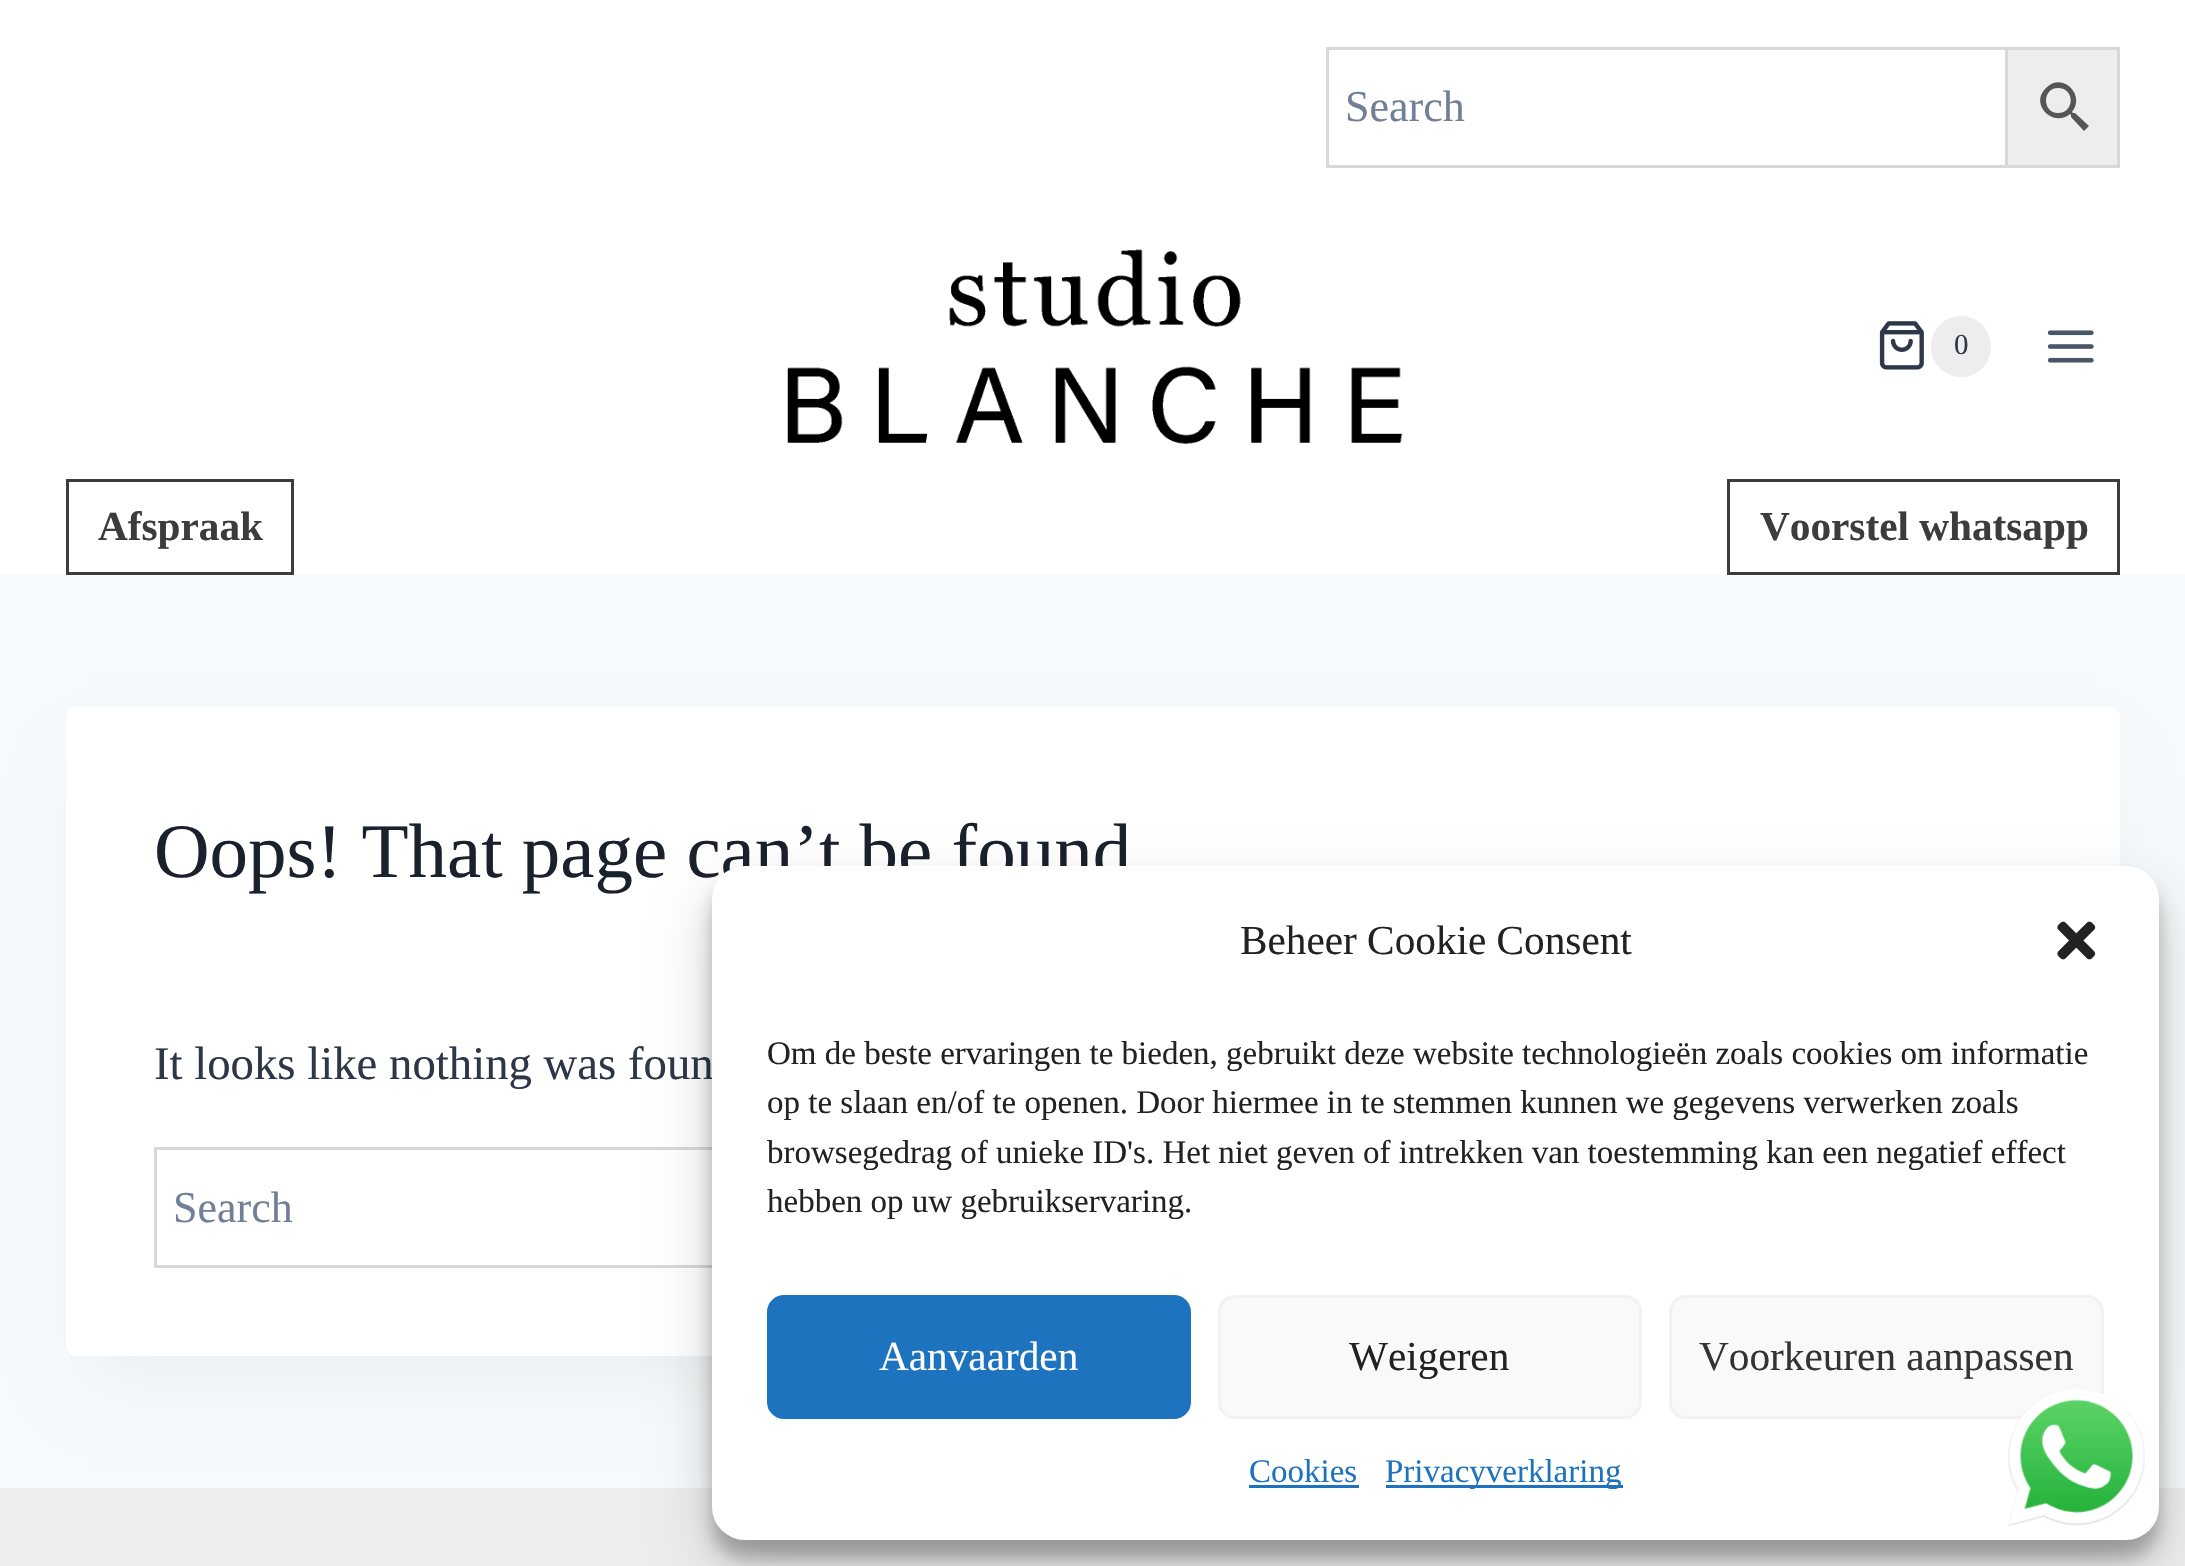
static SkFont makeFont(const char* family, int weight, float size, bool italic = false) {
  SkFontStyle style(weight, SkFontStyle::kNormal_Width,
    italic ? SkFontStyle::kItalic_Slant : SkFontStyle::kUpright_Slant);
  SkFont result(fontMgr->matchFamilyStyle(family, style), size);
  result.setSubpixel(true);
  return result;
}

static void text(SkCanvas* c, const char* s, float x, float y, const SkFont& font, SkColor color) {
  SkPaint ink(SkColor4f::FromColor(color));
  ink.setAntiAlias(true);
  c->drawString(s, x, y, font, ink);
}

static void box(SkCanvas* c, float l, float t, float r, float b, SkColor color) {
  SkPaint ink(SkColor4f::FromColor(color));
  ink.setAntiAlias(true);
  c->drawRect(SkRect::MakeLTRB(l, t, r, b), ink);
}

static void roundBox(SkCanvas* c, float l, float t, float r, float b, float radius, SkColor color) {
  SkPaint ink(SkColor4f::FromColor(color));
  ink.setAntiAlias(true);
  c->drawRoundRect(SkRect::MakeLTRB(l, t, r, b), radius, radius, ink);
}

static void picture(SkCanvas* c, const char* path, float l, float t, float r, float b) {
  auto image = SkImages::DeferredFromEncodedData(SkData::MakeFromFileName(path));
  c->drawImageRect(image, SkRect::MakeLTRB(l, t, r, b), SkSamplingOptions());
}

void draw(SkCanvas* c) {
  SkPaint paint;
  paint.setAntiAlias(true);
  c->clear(0xfff7fafc);
  box(c, 0, 0, 2185, 575, 0xffffffff);
  paint.setColor(0xffededed);
  c->drawRect(SkRect::MakeLTRB(2006.5f, 48.5f, 2118.5f, 166.5f), paint);
  paint.setStyle(SkPaint::kStroke_Style);
  paint.setStrokeWidth(3);
  paint.setColor(0xffd8d8d8);
  c->drawRect(SkRect::MakeLTRB(2006.5f, 48.5f, 2118.5f, 166.5f), paint);
  c->drawRect(SkRect::MakeLTRB(1327.5f, 48.5f, 2006.5f, 166.5f), paint);
  SkFont face1 = makeFont("Liberation Serif", 400, 44);
  text(c, "Search", 1345, 121, face1, 0xff718096);
  paint.setStyle(SkPaint::kFill_Style);
  paint.setColor(0xff555555);
  c->drawPath(SkPathBuilder().moveTo(2075, 113).lineTo(2073, 113).lineTo(2072, 112).cubicTo(2086, 95, 2062, 71, 2046, 88).cubicTo(2029, 104, 2053, 128, 2070, 114).lineTo(2071, 115).lineTo(2071, 117).lineTo(2084, 131).lineTo(2089, 126).close().moveTo(2058, 113).cubicTo(2042, 113, 2042, 88, 2058, 88).cubicTo(2075, 88, 2075, 113, 2058, 113).close().detach(), paint);
  picture(c, "img_01.png", 787, 249, 1403, 444);
  picture(c, "img_02.png", 1879, 321, 1924, 370);
  roundBox(c, 1931, 316, 1991, 377, 30, 0xffededed);
  SkFont face2 = makeFont("Liberation Serif", 400, 29);
  text(c, "0", 1954, 354, face2, 0xff2d3748);
  picture(c, "img_03.png", 2047, 330, 2094, 363);
  paint.setStyle(SkPaint::kStroke_Style);
  paint.setColor(0xff3c3c3c);
  c->drawRect(SkRect::MakeLTRB(67.5f, 480.5f, 292.5f, 573.5f), paint);
  SkFont face3 = makeFont("Liberation Serif", 700, 41.25f);
  text(c, "Afspraak", 98, 540, face3, 0xff3c3c3c);
  c->drawRect(SkRect::MakeLTRB(1728.5f, 480.5f, 2118.5f, 573.5f), paint);
  text(c, "Voorstel whatsapp", 1760, 540, face3, 0xff3c3c3c);
  paint.setStyle(SkPaint::kFill_Style);
  paint.setColor(0x0d000000);
  paint.setMaskFilter(SkMaskFilter::MakeBlur(kNormal_SkBlurStyle, 34.5f));
  c->drawRect(SkRect::MakeLTRB(94, 776, 2093, 1370), paint);
  paint.setMaskFilter(nullptr);
  roundBox(c, 66, 707, 2120, 1356, 11, 0xffffffff);
  SkFont face4 = makeFont("Liberation Serif", 400, 77);
  text(c, "Oops! That page can’t be found", 154, 877, face4, 0xff1a202c);
  SkFont face5 = makeFont("Liberation Serif", 400, 46.75f);
  text(c, "It looks like nothing was foun", 154, 1079, face5, 0xff2d3748);
  paint.setStyle(SkPaint::kStroke_Style);
  paint.setColor(0xffd8d8d8);
  c->drawRect(SkRect::MakeLTRB(155.5f, 1148.5f, 1918.5f, 1266.5f), paint);
  text(c, "Search", 173, 1222, face1, 0xff718096);
  box(c, 0, 1488, 2185, 1566, 0xffededed);
  paint.setStyle(SkPaint::kFill_Style);
  paint.setColor(0x3b000000);
  paint.setMaskFilter(SkMaskFilter::MakeBlur(kNormal_SkBlurStyle, 8));
  c->drawRoundRect(SkRect::MakeLTRB(712, 883, 2159, 1557), 33, 33, paint);
  paint.setMaskFilter(nullptr);
  paint.setColor(0x30000000);
  paint.setMaskFilter(SkMaskFilter::MakeBlur(kNormal_SkBlurStyle, 27.5f));
  c->drawRoundRect(SkRect::MakeLTRB(712, 894, 2159, 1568), 33, 33, paint);
  paint.setMaskFilter(nullptr);
  roundBox(c, 712, 866, 2159, 1540, 33, 0xffffffff);
  SkFont face6 = makeFont("Liberation Serif", 400, 41.25f);
  text(c, "Beheer Cookie Consent", 1240, 954, face6, 0xff222222);
  picture(c, "img_04.png", 2057, 921, 2096, 960);
  SkFont face7 = makeFont("Liberation Serif", 400, 33);
  text(c, "Om de beste ervaringen te bieden, gebruikt deze website technologieën zoals cookies om informatie", 767, 1064, face7, 0xff222222);
  text(c, "op te slaan en/of te openen. Door hiermee in te stemmen kunnen we gegevens verwerken zoals", 767, 1113, face7, 0xff222222);
  text(c, "browsegedrag of unieke ID's. Het niet geven of intrekken van toestemming kan een negatief effect", 767, 1163, face7, 0xff222222);
  text(c, "hebben op uw gebruikservaring.", 767, 1212, face7, 0xff222222);
  paint.setColor(0xff1e73be);
  c->drawRoundRect(SkRect::MakeLTRB(768.5f, 1296.5f, 1189.5f, 1417.5f), 15.5f, 15.5f, paint);
  paint.setStyle(SkPaint::kStroke_Style);
  c->drawRoundRect(SkRect::MakeLTRB(768.5f, 1296.5f, 1189.5f, 1417.5f), 15.5f, 15.5f, paint);
  text(c, "Aanvaarden", 879, 1370, face6, 0xffffffff);
  paint.setStyle(SkPaint::kFill_Style);
  paint.setColor(0xfff9f9f9);
  c->drawRoundRect(SkRect::MakeLTRB(1219.5f, 1296.5f, 1640.5f, 1417.5f), 15.5f, 15.5f, paint);
  paint.setStyle(SkPaint::kStroke_Style);
  paint.setColor(0xfff2f2f2);
  c->drawRoundRect(SkRect::MakeLTRB(1219.5f, 1296.5f, 1640.5f, 1417.5f), 15.5f, 15.5f, paint);
  text(c, "Weigeren", 1349, 1370, face6, 0xff222222);
  paint.setStyle(SkPaint::kFill_Style);
  paint.setColor(0xfff9f9f9);
  c->drawRoundRect(SkRect::MakeLTRB(1670.5f, 1296.5f, 2102.5f, 1417.5f), 15.5f, 15.5f, paint);
  paint.setStyle(SkPaint::kStroke_Style);
  paint.setColor(0xfff2f2f2);
  c->drawRoundRect(SkRect::MakeLTRB(1670.5f, 1296.5f, 2102.5f, 1417.5f), 15.5f, 15.5f, paint);
  text(c, "Voorkeuren aanpassen", 1699, 1370, face6, 0xff333333);
  text(c, "Cookies", 1249, 1482, face7, 0xff1e73be);
  box(c, 1249, 1485, 1359, 1488, 0xff1e73be);
  box(c, 1386, 1485, 1623, 1488, 0xff1e73be);
  text(c, "Privacyverklaring", 1385, 1482, face7, 0xff1e73be);
  picture(c, "img_05.png", 2007, 1389, 2145, 1526);
}
